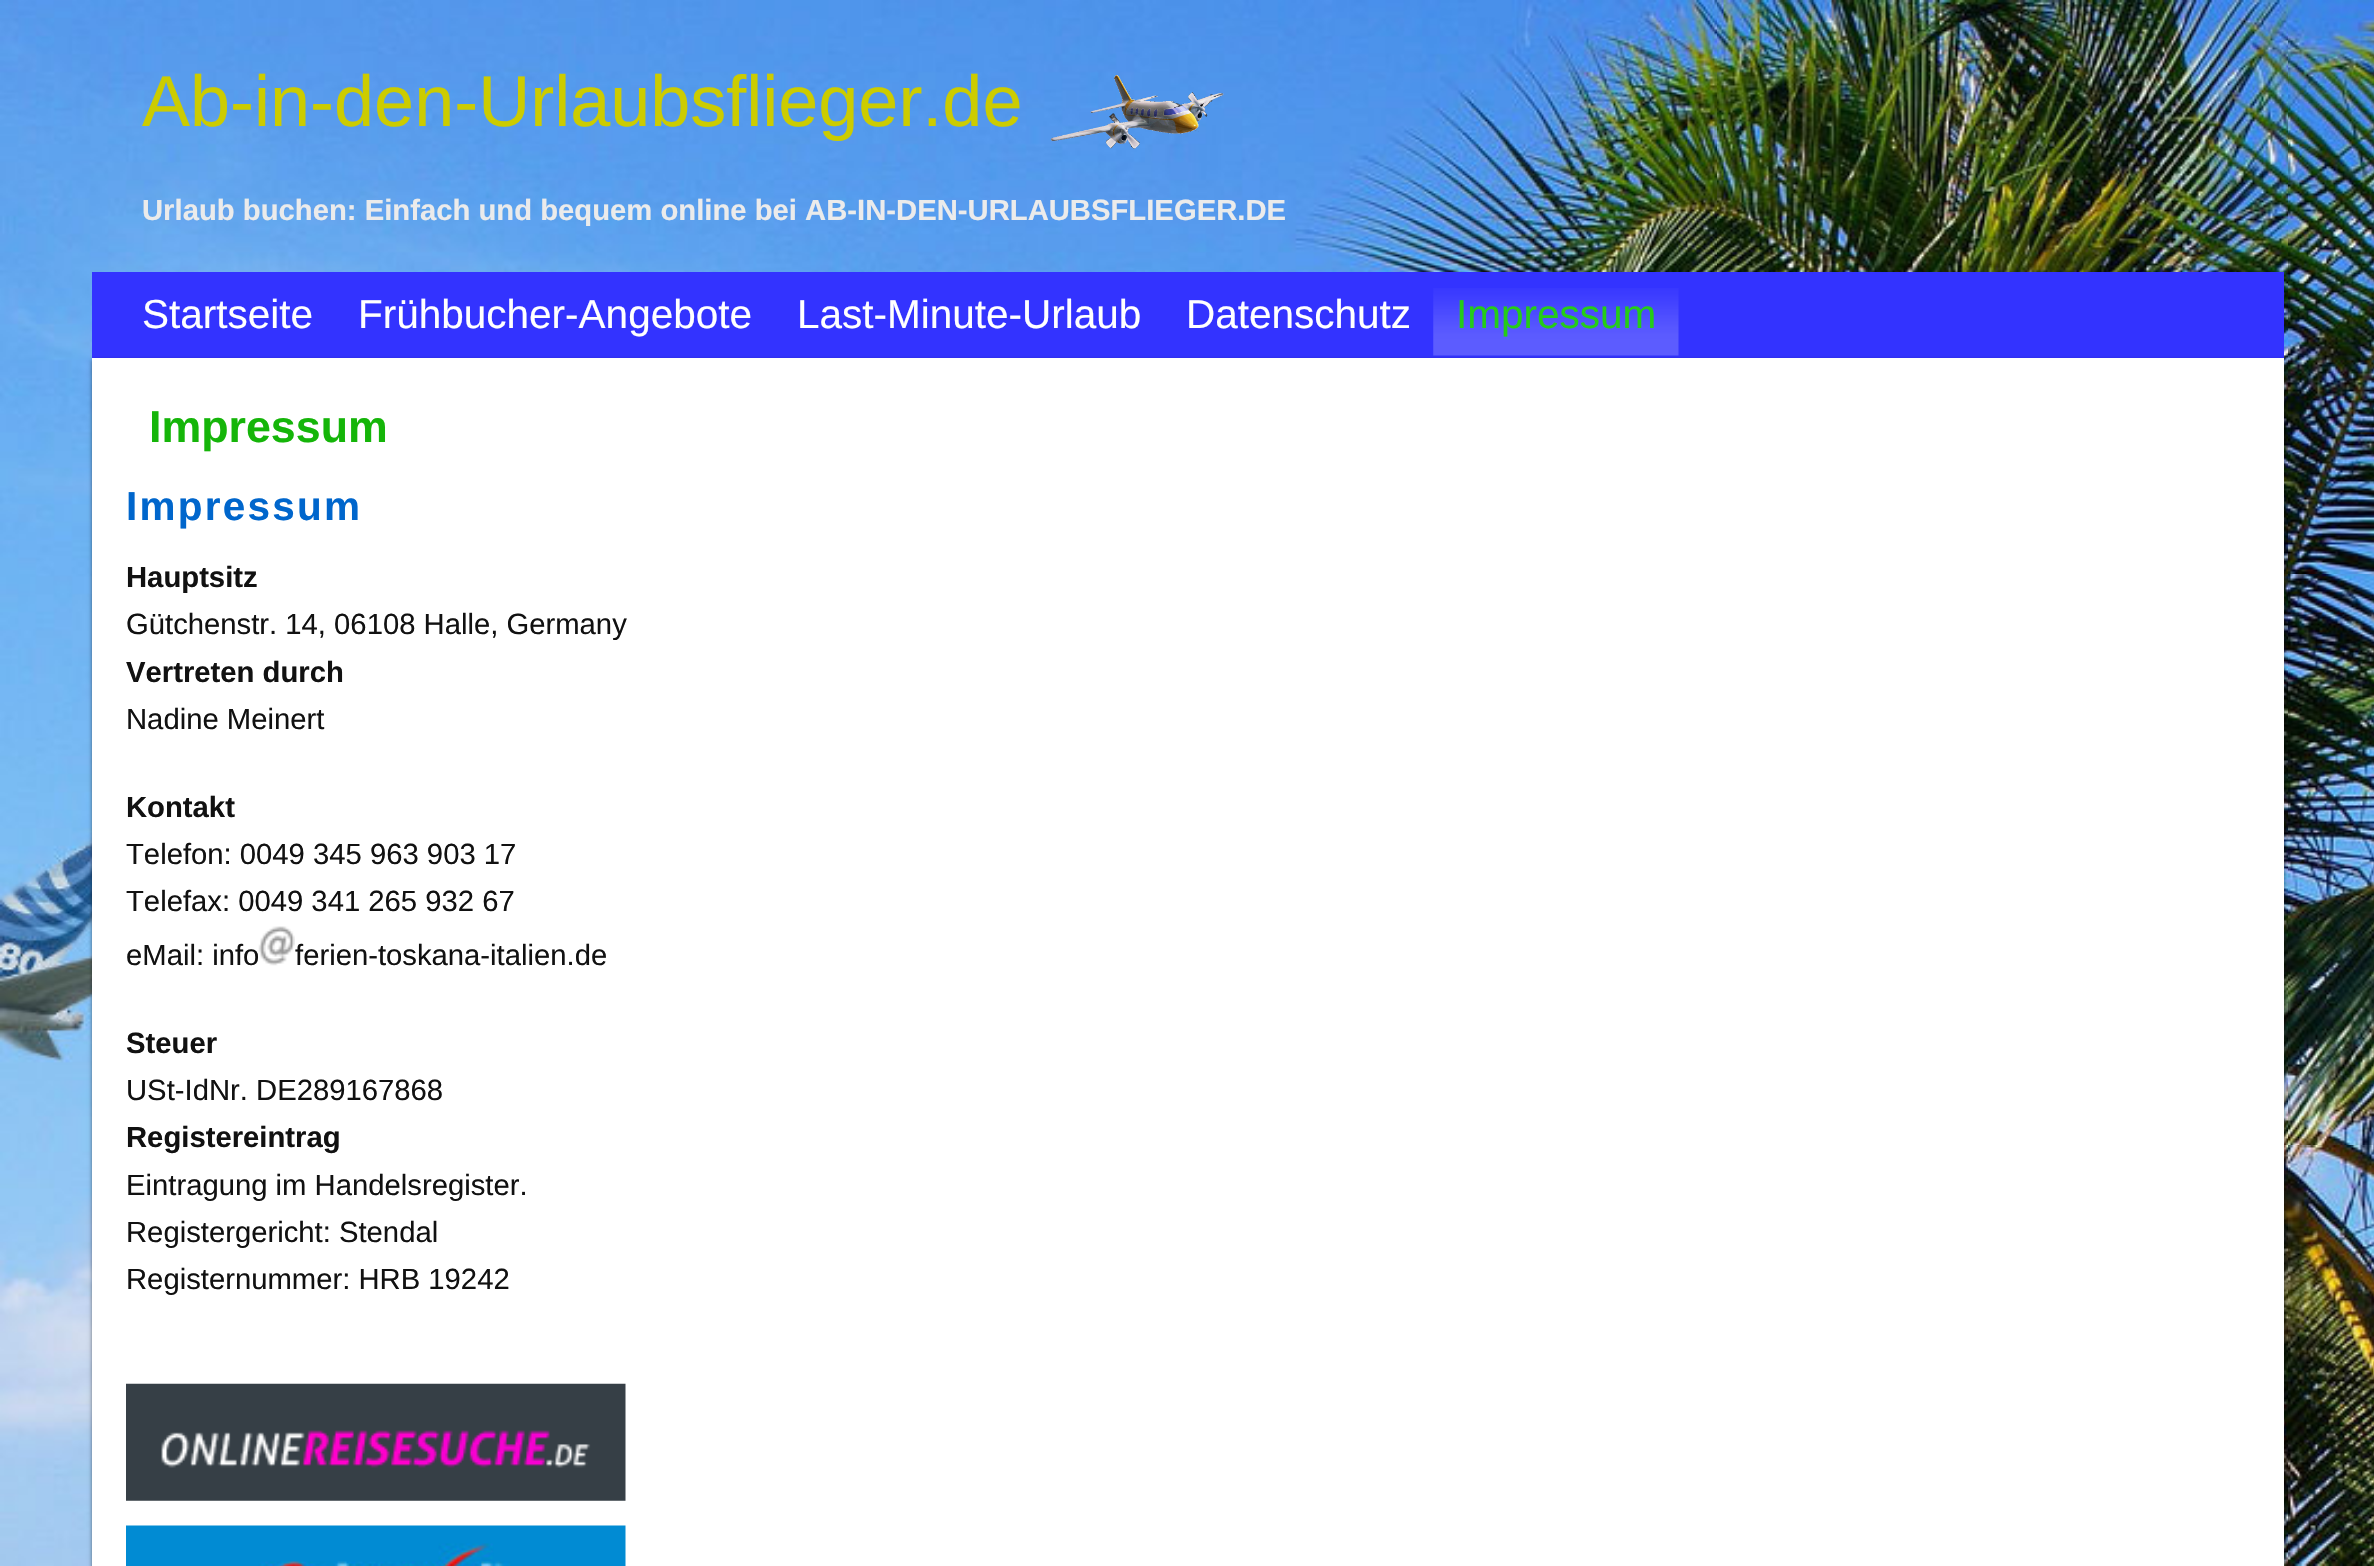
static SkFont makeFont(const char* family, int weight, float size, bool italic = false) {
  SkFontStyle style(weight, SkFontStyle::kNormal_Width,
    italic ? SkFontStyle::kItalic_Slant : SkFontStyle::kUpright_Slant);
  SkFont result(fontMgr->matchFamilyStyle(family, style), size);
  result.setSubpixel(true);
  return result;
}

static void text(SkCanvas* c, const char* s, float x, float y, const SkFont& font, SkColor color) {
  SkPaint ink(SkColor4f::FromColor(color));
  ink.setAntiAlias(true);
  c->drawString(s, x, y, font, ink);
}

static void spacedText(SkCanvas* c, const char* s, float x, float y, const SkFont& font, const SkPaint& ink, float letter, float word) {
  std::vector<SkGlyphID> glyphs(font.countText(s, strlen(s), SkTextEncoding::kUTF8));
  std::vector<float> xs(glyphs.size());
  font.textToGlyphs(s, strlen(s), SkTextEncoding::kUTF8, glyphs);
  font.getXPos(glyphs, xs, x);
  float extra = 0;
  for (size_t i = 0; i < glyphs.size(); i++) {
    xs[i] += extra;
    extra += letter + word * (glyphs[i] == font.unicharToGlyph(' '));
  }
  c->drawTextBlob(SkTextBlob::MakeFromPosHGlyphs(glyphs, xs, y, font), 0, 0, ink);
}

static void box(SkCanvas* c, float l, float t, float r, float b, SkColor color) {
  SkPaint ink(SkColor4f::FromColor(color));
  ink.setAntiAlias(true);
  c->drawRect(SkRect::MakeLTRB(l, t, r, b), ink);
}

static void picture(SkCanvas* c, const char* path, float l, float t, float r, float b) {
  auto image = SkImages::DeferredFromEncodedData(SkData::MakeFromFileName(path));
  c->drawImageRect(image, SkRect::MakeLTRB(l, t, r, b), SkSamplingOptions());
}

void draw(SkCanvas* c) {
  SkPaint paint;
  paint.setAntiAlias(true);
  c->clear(0xffffffff);
  picture(c, "img_01.png", 0, 0, 2374, 1566);
  SkFont face1 = makeFont("Liberation Sans", 400, 72);
  text(c, "Ab-in-den-Urlaubsflieger.de", 142, 126, face1, 0xffcccc00);
  picture(c, "img_02.png", 1051, 75, 1224, 149);
  SkFont face2 = makeFont("Liberation Sans", 700, 29.25f);
  text(c, "Urlaub buchen: Einfach und bequem online bei AB-IN-DEN-URLAUBSFLIEGER.DE", 142, 220, face2, 0xffebebeb);
  box(c, 92, 272, 2284, 358, 0xff3333ff);
  SkFont face3 = makeFont("Liberation Sans", 400, 40.5f);
  text(c, "Startseite", 142, 328, face3, 0xffffffff);
  text(c, "Frühbucher-Angebote", 358, 328, face3, 0xffffffff);
  text(c, "Last-Minute-Urlaub", 797, 328, face3, 0xffffffff);
  text(c, "Datenschutz", 1186, 328, face3, 0xffffffff);
  paint.setColor(0x80000000);
  paint.setMaskFilter(SkMaskFilter::MakeBlur(kNormal_SkBlurStyle, 2));
  c->drawRect(SkRect::MakeLTRB(92, 360, 2284, 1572), paint);
  paint.setMaskFilter(nullptr);
  picture(c, "img_03.png", 1433, 288, 1679, 356);
  text(c, "Impressum", 1456, 328, face3, 0xff25cc18);
  box(c, 92, 358, 2284, 1566, 0xffffffff);
  SkFont face4 = makeFont("Liberation Sans", 700, 44.75f);
  text(c, "Impressum", 149, 442, face4, 0xff15b509);
  SkFont face5 = makeFont("Liberation Sans", 700, 40.5f);
  paint.setColor(0xff0066cc);
  spacedText(c, "Impressum", 126, 520, face5, paint, 2.25f, 0);
  text(c, "Hauptsitz", 126, 587, face2, 0xff111111);
  SkFont face6 = makeFont("Liberation Sans", 400, 29.25f);
  text(c, "Gütchenstr. 14, 06108 Halle, Germany", 126, 634, face6, 0xff111111);
  text(c, "Vertreten durch", 126, 682, face2, 0xff111111);
  text(c, "Nadine Meinert", 126, 729, face6, 0xff111111);
  text(c, "Kontakt", 126, 817, face2, 0xff111111);
  text(c, "Telefon: 0049 345 963 903 17", 126, 864, face6, 0xff111111);
  text(c, "Telefax: 0049 341 265 932 67", 126, 911, face6, 0xff111111);
  text(c, "eMail: info", 126, 965, face6, 0xff111111);
  picture(c, "img_04.png", 258, 926, 295, 966);
  text(c, "ferien-toskana-italien.de", 295, 965, face6, 0xff111111);
  text(c, "Steuer", 126, 1053, face2, 0xff111111);
  text(c, "USt-IdNr. DE289167868", 126, 1100, face6, 0xff111111);
  text(c, "Registereintrag", 126, 1147, face2, 0xff111111);
  text(c, "Eintragung im Handelsregister.", 126, 1195, face6, 0xff111111);
  text(c, "Registergericht: Stendal", 126, 1242, face6, 0xff111111);
  text(c, "Registernummer: HRB 19242", 126, 1289, face6, 0xff111111);
  picture(c, "img_05.png", 126, 1383, 626, 1501);
  picture(c, "img_06.png", 126, 1525, 626, 1566);
}
